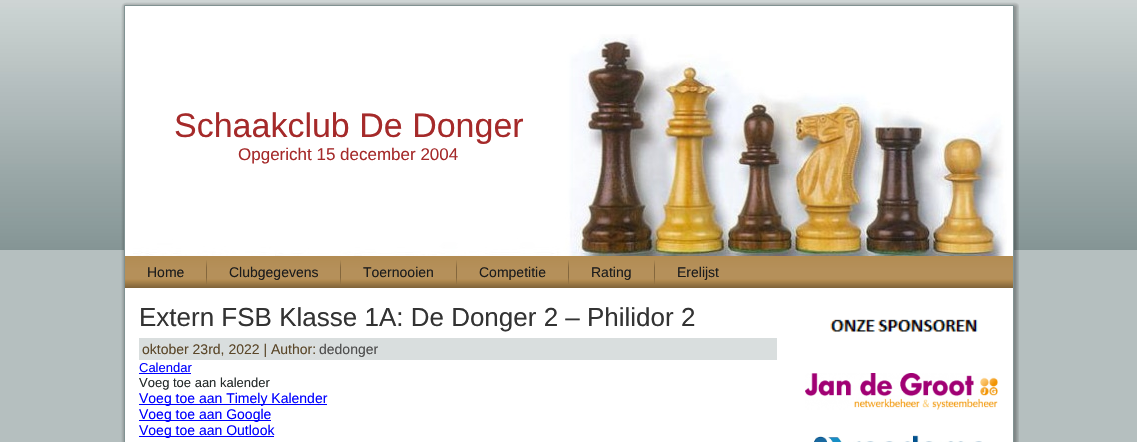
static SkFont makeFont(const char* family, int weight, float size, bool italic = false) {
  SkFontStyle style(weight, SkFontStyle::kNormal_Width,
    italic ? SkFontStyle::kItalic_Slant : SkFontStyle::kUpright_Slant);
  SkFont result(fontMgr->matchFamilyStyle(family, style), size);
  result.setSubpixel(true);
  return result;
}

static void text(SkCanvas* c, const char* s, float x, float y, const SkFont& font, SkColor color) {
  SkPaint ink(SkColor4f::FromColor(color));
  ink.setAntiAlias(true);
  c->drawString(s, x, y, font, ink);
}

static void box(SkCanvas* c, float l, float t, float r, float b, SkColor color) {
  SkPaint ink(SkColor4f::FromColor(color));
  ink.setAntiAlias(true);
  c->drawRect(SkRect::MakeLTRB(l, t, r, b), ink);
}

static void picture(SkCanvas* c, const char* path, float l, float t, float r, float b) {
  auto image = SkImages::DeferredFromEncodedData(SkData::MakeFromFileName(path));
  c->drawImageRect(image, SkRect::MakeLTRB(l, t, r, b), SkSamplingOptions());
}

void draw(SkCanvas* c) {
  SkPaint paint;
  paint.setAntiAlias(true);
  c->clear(0xffb5bfbf);
  picture(c, "img_01.png", 0, 0, 1137, 250);
  picture(c, "img_02.png", 121, 2, 140, 21);
  picture(c, "img_03.png", 140, 2, 998, 21);
  picture(c, "img_04.png", 998, 2, 1019, 21);
  picture(c, "img_05.png", 121, 21, 140, 442);
  box(c, 140, 21, 998, 442, 0xffffffff);
  picture(c, "img_06.png", 998, 21, 1019, 442);
  picture(c, "img_07.png", 133, 34, 1007, 256);
  SkFont face1 = makeFont("Liberation Sans", 400, 34);
  text(c, "Schaakclub De Donger", 174, 137, face1, 0xffa52a2a);
  SkFont face2 = makeFont("Liberation Sans", 400, 17);
  text(c, "Opgericht 15 december 2004", 238, 160, face2, 0xffa52a2a);
  picture(c, "img_08.png", 125, 256, 1013, 288);
  SkFont face3 = makeFont("Liberation Sans", 400, 14);
  text(c, "Home", 147, 277, face3, 0xff1c1c1c);
  picture(c, "img_09.png", 206, 260, 207, 284);
  text(c, "Clubgegevens", 229, 277, face3, 0xff1c1c1c);
  picture(c, "img_09.png", 340, 260, 341, 284);
  text(c, "Toernooien", 363, 277, face3, 0xff1c1c1c);
  picture(c, "img_09.png", 456, 260, 457, 284);
  text(c, "Competitie", 479, 277, face3, 0xff1c1c1c);
  picture(c, "img_09.png", 568, 260, 569, 284);
  text(c, "Rating", 591, 277, face3, 0xff1c1c1c);
  picture(c, "img_09.png", 654, 260, 655, 284);
  text(c, "Erelijst", 677, 277, face3, 0xff1c1c1c);
  SkFont face4 = makeFont("Liberation Sans", 400, 26);
  text(c, "Extern FSB Klasse 1A: De Donger 2 – Philidor 2", 139, 326, face4, 0xff333333);
  box(c, 139, 338, 777, 360, 0xffd9dede);
  text(c, "oktober 23rd, 2022 | Author:", 142, 354, face3, 0xff5b4729);
  text(c, "dedonger", 319, 354, face3, 0xff4d4d4d);
  SkFont face5 = makeFont("Liberation Sans", 400, 13);
  text(c, "Calendar", 139, 372, face5, 0xff0000ff);
  box(c, 139, 373, 191, 374, 0xff0000ff);
  text(c, "Voeg toe aan kalender", 139, 387, face5, 0xff262c2c);
  box(c, 139, 404, 327, 405, 0xff0000ff);
  text(c, "Voeg toe aan Timely Kalender", 139, 403, face3, 0xff0000ff);
  box(c, 139, 420, 271, 421, 0xff0000ff);
  text(c, "Voeg toe aan Google", 139, 419, face3, 0xff0000ff);
  box(c, 139, 436, 274, 437, 0xff0000ff);
  text(c, "Voeg toe aan Outlook", 139, 435, face3, 0xff0000ff);
  picture(c, "img_10.png", 830, 319, 978, 332);
  picture(c, "img_11.png", 805, 373, 998, 410);
  picture(c, "img_12.png", 814, 435, 982, 442);
}
